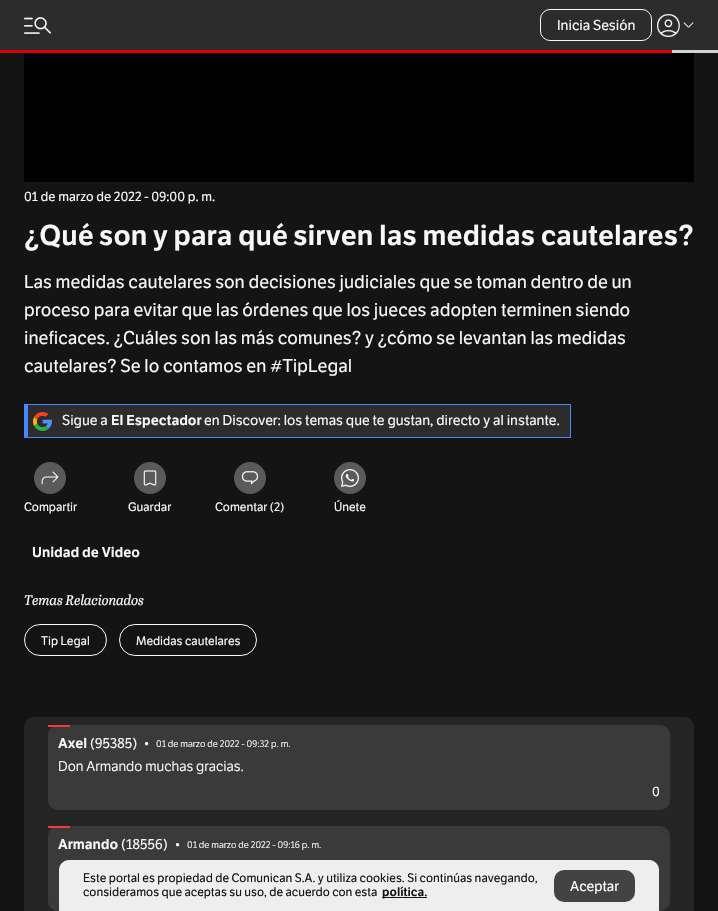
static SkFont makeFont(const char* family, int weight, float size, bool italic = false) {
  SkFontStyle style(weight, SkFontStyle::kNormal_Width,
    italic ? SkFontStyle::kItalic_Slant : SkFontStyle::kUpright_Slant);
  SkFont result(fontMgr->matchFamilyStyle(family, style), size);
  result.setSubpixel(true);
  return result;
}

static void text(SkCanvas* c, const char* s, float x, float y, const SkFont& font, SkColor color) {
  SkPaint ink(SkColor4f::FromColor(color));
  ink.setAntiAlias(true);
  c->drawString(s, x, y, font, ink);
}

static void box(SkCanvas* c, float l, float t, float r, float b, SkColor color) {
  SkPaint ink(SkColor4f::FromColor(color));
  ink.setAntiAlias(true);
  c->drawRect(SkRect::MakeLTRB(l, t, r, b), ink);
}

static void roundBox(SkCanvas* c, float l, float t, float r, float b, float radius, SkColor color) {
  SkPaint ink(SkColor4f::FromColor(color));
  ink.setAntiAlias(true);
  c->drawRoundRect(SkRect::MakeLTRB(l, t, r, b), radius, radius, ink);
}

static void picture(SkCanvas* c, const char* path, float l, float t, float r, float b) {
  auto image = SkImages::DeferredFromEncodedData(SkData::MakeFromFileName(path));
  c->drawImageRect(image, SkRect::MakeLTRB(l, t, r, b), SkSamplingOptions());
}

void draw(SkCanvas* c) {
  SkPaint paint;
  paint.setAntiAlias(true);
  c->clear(0xff141414);
  box(c, 0, 0, 718, 50, 0xff2c2c2c);
  picture(c, "img_01.png", 24, 17, 51, 34);
  paint.setStyle(SkPaint::kStroke_Style);
  paint.setStrokeWidth(1);
  paint.setColor(0xfff7f7f7);
  c->drawRoundRect(SkRect::MakeLTRB(540.5f, 9.5f, 651.5f, 40.5f), 9.5f, 9.5f, paint);
  SkFont face1 = makeFont("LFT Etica", 400, 14);
  text(c, "Inicia Sesión", 557, 30, face1, 0xfff7f7f7);
  picture(c, "img_02.png", 657, 14, 680, 37);
  picture(c, "img_03.png", 683, 22, 694, 28);
  box(c, 672, 50, 718, 53, 0xffd2d2d2);
  box(c, 0, 50, 672, 53, 0xffe00000);
  box(c, 24, 53, 694, 182, 0xff000000);
  SkFont face2 = makeFont("LFT Etica", 400, 13);
  text(c, "01 de marzo de 2022 - 09:00 p. m.", 24, 201, face2, 0xfff7f7f7);
  SkFont face3 = makeFont("LFT Etica", 600, 28);
  text(c, "¿Qué son y para qué sirven las medidas cautelares?", 24, 245, face3, 0xfff7f7f7);
  SkFont face4 = makeFont("LFT Etica", 400, 18);
  text(c, "Las medidas cautelares son decisiones judiciales que se toman dentro de un", 24, 288, face4, 0xfff7f7f7);
  text(c, "proceso para evitar que las órdenes que los jueces adopten terminen siendo", 24, 316, face4, 0xfff7f7f7);
  text(c, "ineficaces. ¿Cuáles son las más comunes? y ¿cómo se levantan las medidas", 24, 344, face4, 0xfff7f7f7);
  text(c, "cautelares? Se lo contamos en #TipLegal", 24, 372, face4, 0xfff7f7f7);
  box(c, 28, 405, 570, 437, 0xff2c2c2c);
  box(c, 24, 404, 571, 405, 0xff4589ff);
  box(c, 570, 404, 571, 438, 0xff4589ff);
  box(c, 24, 437, 571, 438, 0xff4589ff);
  box(c, 24, 404, 28, 438, 0xff4589ff);
  picture(c, "img_04.png", 33, 412, 52, 431);
  text(c, "Sigue a", 62, 425, face1, 0xfff7f7f7);
  SkFont face5 = makeFont("LFT Etica", 600, 14);
  text(c, "El Espectador", 111, 425, face5, 0xfff7f7f7);
  text(c, "en Discover: los temas que te gustan, directo y al instante.", 204, 425, face1, 0xfff7f7f7);
  paint.setStyle(SkPaint::kFill_Style);
  paint.setColor(0xff5a5a5a);
  c->drawCircle(50, 478, 16, paint);
  picture(c, "img_05.png", 41, 471, 59, 485);
  SkFont face6 = makeFont("LFT Etica", 400, 12);
  text(c, "Compartir", 24, 511, face6, 0xfff7f7f7);
  c->drawCircle(150, 478, 16, paint);
  picture(c, "img_06.png", 143, 470, 157, 486);
  text(c, "Guardar", 128, 511, face6, 0xfff7f7f7);
  c->drawCircle(250, 478, 16, paint);
  picture(c, "img_07.png", 241, 471, 259, 485);
  text(c, "Comentar (2)", 215, 511, face6, 0xfff7f7f7);
  c->drawCircle(350, 478, 13, paint);
  paint.setStyle(SkPaint::kStroke_Style);
  paint.setStrokeWidth(6);
  c->drawCircle(350, 478, 13, paint);
  picture(c, "img_08.png", 341, 469, 359, 487);
  text(c, "Únete", 334, 511, face6, 0xfff7f7f7);
  text(c, "Unidad de Video", 32, 557, face5, 0xfff7f7f7);
  SkFont face7 = makeFont("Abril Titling", 400, 14, true);
  text(c, "Temas Relacionados", 24, 605, face7, 0xfff7f7f7);
  paint.setStrokeWidth(1);
  paint.setColor(0xfff7f7f7);
  c->drawRoundRect(SkRect::MakeLTRB(24.5f, 624.5f, 106.5f, 655.5f), 15.5f, 15.5f, paint);
  text(c, "Tip Legal", 41, 645, face6, 0xfff7f7f7);
  c->drawRoundRect(SkRect::MakeLTRB(119.5f, 624.5f, 256.5f, 655.5f), 15.5f, 15.5f, paint);
  text(c, "Medidas cautelares", 136, 645, face6, 0xfff7f7f7);
  roundBox(c, 24, 717, 694, 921, 10, 0xff252525);
  roundBox(c, 48, 725, 670, 810, 10, 0xff3a3a3a);
  box(c, 48, 725, 70, 727, 0xfff63939);
  text(c, "Axel", 58, 748, face5, 0xfff7f7f7);
  text(c, "(95385)", 90, 748, face1, 0xfff7f7f7);
  SkFont face8 = makeFont("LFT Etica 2", 400, 14);
  text(c, "•", 143, 748, face8, 0xfff7f7f7);
  SkFont face9 = makeFont("LFT Etica 2", 400, 9.4f);
  text(c, "01 de marzo de 2022 - 09:32 p. m.", 156, 747, face9, 0xfff7f7f7);
  text(c, "Don Armando muchas gracias.", 58, 771, face8, 0xfff7f7f7);
  text(c, "0", 652, 796, face2, 0xfff7f7f7);
  roundBox(c, 48, 826, 670, 911, 10, 0xff3a3a3a);
  box(c, 48, 826, 70, 828, 0xfff63939);
  text(c, "Armando", 58, 849, face5, 0xfff7f7f7);
  text(c, "(18556)", 121, 849, face1, 0xfff7f7f7);
  text(c, "•", 174, 849, face8, 0xfff7f7f7);
  text(c, "01 de marzo de 2022 - 09:16 p. m.", 187, 848, face9, 0xfff7f7f7);
  paint.setStyle(SkPaint::kFill_Style);
  paint.setColor(0xffeeeeee);
  c->drawPath(SkPathBuilder().moveTo(69, 860).lineTo(649, 860).cubicTo(654.5f, 860, 659, 864.5f, 659, 870).lineTo(659, 911).lineTo(59, 911).lineTo(59, 870).cubicTo(59, 864.5f, 63.5f, 860, 69, 860).close().detach(), paint);
  text(c, "Este portal es propiedad de Comunican S.A. y utiliza cookies. Si continúas navegando,", 83, 882, face6, 0xff141414);
  text(c, "consideramos que aceptas su uso, de acuerdo con esta", 83, 896, face6, 0xff141414);
  box(c, 382, 897, 427, 898, 0xff141414);
  SkFont face10 = makeFont("LFT Etica", 600, 12);
  text(c, "política.", 382, 896, face10, 0xff141414);
  roundBox(c, 554, 870, 635, 902, 10, 0xff434343);
  text(c, "Aceptar", 570, 891, face1, 0xffffffff);
}
